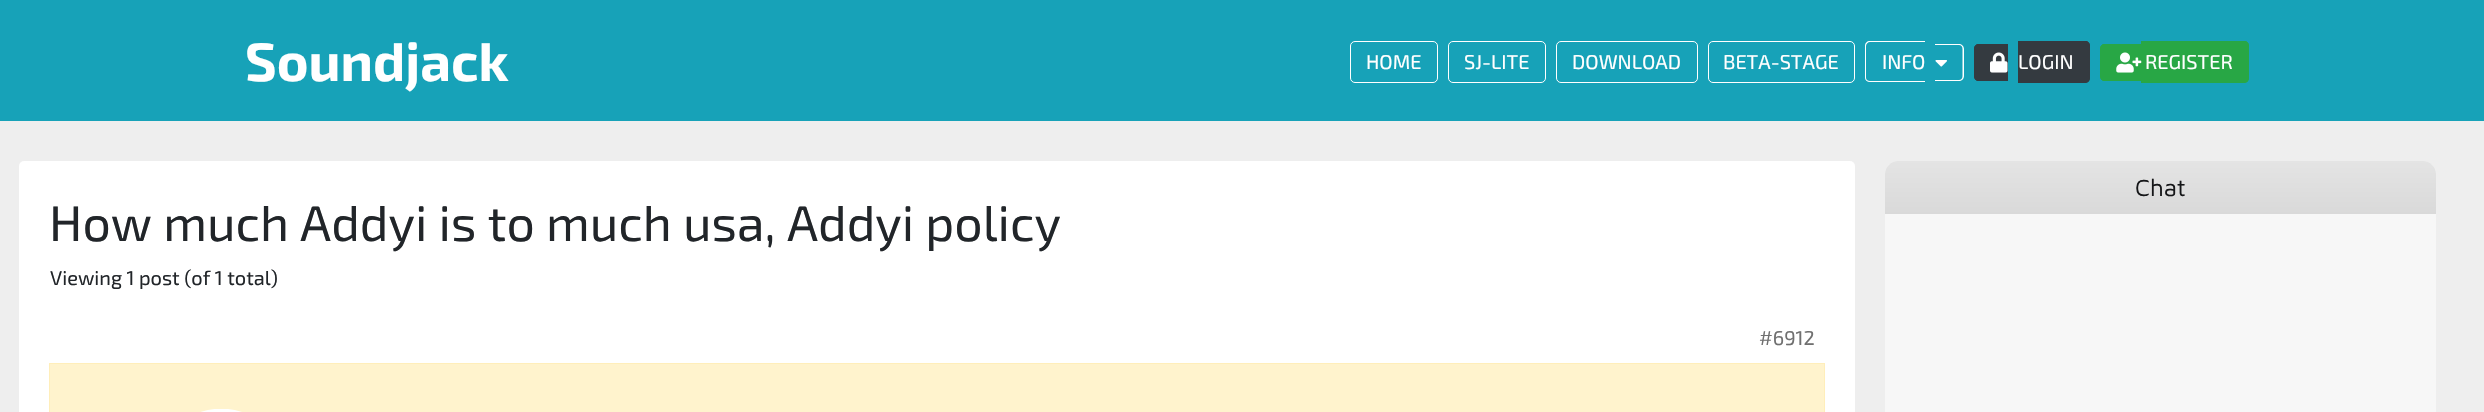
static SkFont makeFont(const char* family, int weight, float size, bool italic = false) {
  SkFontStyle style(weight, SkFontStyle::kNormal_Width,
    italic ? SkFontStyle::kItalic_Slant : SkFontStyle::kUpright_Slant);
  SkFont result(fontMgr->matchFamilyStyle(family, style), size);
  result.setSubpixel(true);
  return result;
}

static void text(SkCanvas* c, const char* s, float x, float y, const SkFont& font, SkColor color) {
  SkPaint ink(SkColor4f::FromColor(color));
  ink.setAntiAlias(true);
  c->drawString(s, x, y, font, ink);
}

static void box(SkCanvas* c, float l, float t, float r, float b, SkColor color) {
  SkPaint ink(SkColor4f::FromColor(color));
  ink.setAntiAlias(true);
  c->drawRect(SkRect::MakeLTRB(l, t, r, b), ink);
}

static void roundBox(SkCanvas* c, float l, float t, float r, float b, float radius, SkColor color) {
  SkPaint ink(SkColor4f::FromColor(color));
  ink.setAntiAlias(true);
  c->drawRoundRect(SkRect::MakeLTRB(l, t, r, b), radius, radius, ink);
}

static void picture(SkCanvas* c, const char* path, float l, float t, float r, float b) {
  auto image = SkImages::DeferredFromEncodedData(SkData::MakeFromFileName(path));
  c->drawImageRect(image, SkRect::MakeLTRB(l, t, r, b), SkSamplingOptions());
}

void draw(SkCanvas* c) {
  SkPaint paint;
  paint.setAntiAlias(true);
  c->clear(0xffeeeeee);
  box(c, 0, 0, 2484, 121, 0xff17a2b8);
  SkFont face1 = makeFont("Exo 2", 700, 54);
  text(c, "Soundjack", 245, 81, face1, 0xffffffff);
  paint.setStyle(SkPaint::kStroke_Style);
  paint.setStrokeWidth(1);
  paint.setColor(0xffffffff);
  c->drawRoundRect(SkRect::MakeLTRB(1350.5f, 41.5f, 1437.5f, 82.5f), 4.5f, 4.5f, paint);
  SkFont face2 = makeFont("Exo 2", 400, 20);
  text(c, "HOME", 1366, 69, face2, 0xffffffff);
  c->drawRoundRect(SkRect::MakeLTRB(1448.5f, 41.5f, 1545.5f, 82.5f), 4.5f, 4.5f, paint);
  text(c, "SJ-LITE", 1464, 69, face2, 0xffffffff);
  c->drawRoundRect(SkRect::MakeLTRB(1556.5f, 41.5f, 1697.5f, 82.5f), 4.5f, 4.5f, paint);
  text(c, "DOWNLOAD", 1572, 69, face2, 0xffffffff);
  c->drawRoundRect(SkRect::MakeLTRB(1708.5f, 41.5f, 1854.5f, 82.5f), 4.5f, 4.5f, paint);
  text(c, "BETA-STAGE", 1723, 69, face2, 0xffffffff);
  paint.setStyle(SkPaint::kFill_Style);
  c->drawPath(SkPathBuilder(SkPathFillType::kEvenOdd).moveTo(1870, 41).lineTo(1925, 41).lineTo(1925, 82).lineTo(1870, 82).cubicTo(1867, 82, 1865, 80, 1865, 78).lineTo(1865, 46).cubicTo(1865, 43, 1867, 41, 1870, 41).close().moveTo(1870, 42).lineTo(1925, 42).lineTo(1925, 81).lineTo(1870, 81).cubicTo(1868, 81, 1866, 80, 1866, 78).lineTo(1866, 46).cubicTo(1866, 44, 1868, 42, 1870, 42).close().detach(), paint);
  c->drawPath(SkPathBuilder(SkPathFillType::kEvenOdd).moveTo(1935, 44).lineTo(1959, 44).cubicTo(1961.5f, 44, 1964, 46, 1964, 49).lineTo(1964, 76).cubicTo(1964, 79, 1961.5f, 81, 1959, 81).lineTo(1935, 81).close().moveTo(1935, 45).lineTo(1959, 45).cubicTo(1961, 45, 1962.5f, 46.5f, 1962.5f, 49).lineTo(1962.5f, 76).cubicTo(1962.5f, 78.5f, 1961, 80, 1959, 80).lineTo(1935, 80).close().detach(), paint);
  text(c, "INFO", 1882, 69, face2, 0xffffffff);
  picture(c, "img_01.png", 1935, 60, 1947, 67);
  paint.setColor(0xff343a40);
  c->drawPath(SkPathBuilder().moveTo(1979, 44).lineTo(2008, 44).lineTo(2008, 81).lineTo(1979, 81).cubicTo(1976, 81, 1974, 79, 1974, 76).lineTo(1974, 49).cubicTo(1974, 46, 1976, 44, 1979, 44).close().detach(), paint);
  c->drawPath(SkPathBuilder(SkPathFillType::kEvenOdd).moveTo(1979, 44).lineTo(2007.5f, 44).lineTo(2007.5f, 81).lineTo(1979, 81).cubicTo(1976, 81, 1974, 79, 1974, 76).lineTo(1974, 49).cubicTo(1974, 46, 1976, 44, 1979, 44).close().moveTo(1979, 45).lineTo(2007.5f, 45).lineTo(2007.5f, 80).lineTo(1979, 80).cubicTo(1976.5f, 80, 1975, 78.5f, 1975, 76).lineTo(1975, 49).cubicTo(1975, 46.5f, 1976.5f, 45, 1979, 45).close().detach(), paint);
  c->drawPath(SkPathBuilder().moveTo(2018, 41).lineTo(2085, 41).cubicTo(2088, 41, 2090, 43, 2090, 46).lineTo(2090, 78).cubicTo(2090, 81, 2088, 83, 2085, 83).lineTo(2018, 83).close().detach(), paint);
  c->drawPath(SkPathBuilder(SkPathFillType::kEvenOdd).moveTo(2018, 41).lineTo(2085, 41).cubicTo(2088, 41, 2090, 43, 2090, 46).lineTo(2090, 78).cubicTo(2090, 80, 2088, 82, 2085, 82).lineTo(2018, 82).close().moveTo(2018, 42).lineTo(2074, 42).cubicTo(2093, 42, 2089, 42, 2089, 62).cubicTo(2089, 82, 2093, 81, 2074, 81).lineTo(2018, 81).close().detach(), paint);
  picture(c, "img_02.png", 1990, 52, 2008, 73);
  text(c, "LOGIN", 2018, 69, face2, 0xffffffff);
  paint.setColor(0xff28a745);
  c->drawPath(SkPathBuilder().moveTo(2105, 44).lineTo(2141, 44).lineTo(2141, 81).lineTo(2105, 81).cubicTo(2102, 81, 2100, 79, 2100, 76).lineTo(2100, 49).cubicTo(2100, 46, 2102, 44, 2105, 44).close().detach(), paint);
  c->drawPath(SkPathBuilder(SkPathFillType::kEvenOdd).moveTo(2105, 44).lineTo(2141, 44).lineTo(2141, 81).lineTo(2105, 81).cubicTo(2102, 81, 2100, 79, 2100, 76).lineTo(2100, 49).cubicTo(2100, 46, 2102, 44, 2105, 44).close().moveTo(2105, 45).lineTo(2141, 45).lineTo(2141, 80).lineTo(2105, 80).cubicTo(2103, 80, 2101, 78, 2101, 76).lineTo(2101, 49).cubicTo(2101, 47, 2103, 45, 2105, 45).close().detach(), paint);
  c->drawPath(SkPathBuilder().moveTo(2141, 41).lineTo(2244, 41).cubicTo(2247, 41, 2249, 43, 2249, 46).lineTo(2249, 78).cubicTo(2249, 81, 2247, 83, 2244, 83).lineTo(2141, 83).close().detach(), paint);
  c->drawPath(SkPathBuilder(SkPathFillType::kEvenOdd).moveTo(2141, 41).lineTo(2244, 41).cubicTo(2247, 41, 2249, 43, 2249, 46).lineTo(2249, 78).cubicTo(2249, 80, 2247, 82, 2244, 82).lineTo(2141, 82).close().moveTo(2141, 42).lineTo(2244, 42).cubicTo(2246, 42, 2248, 44, 2248, 46).lineTo(2248, 78).cubicTo(2248, 80, 2246, 81, 2244, 81).lineTo(2141, 81).close().detach(), paint);
  picture(c, "img_03.png", 2116, 52, 2142, 73);
  text(c, "REGISTER", 2145, 69, face2, 0xffffffff);
  roundBox(c, 1885, 161, 2436, 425, 13, 0xfff7f7f7);
  {
    const SkColor colors[] = {0xffe4e4e4, 0xffd9d9d9};
    const float stops[] = {0, 1};
    const SkPoint ends[] = {{2161, 161}, {2161, 214}};
    paint.setShader(SkGradientShader::MakeLinear(ends, colors, stops, 2, SkTileMode::kClamp));
    paint.setAlpha(255);
  }
  c->drawPath(SkPathBuilder().moveTo(1898, 161).lineTo(2423, 161).cubicTo(2430, 161, 2436, 167, 2436, 174).lineTo(2436, 214).lineTo(1885, 214).lineTo(1885, 174).cubicTo(1885, 167, 1891, 161, 1898, 161).close().detach(), paint);
  SkFont face3 = makeFont("Maven Pro", 400, 24);
  text(c, "Chat", 2135, 196, face3, 0xff151618);
  roundBox(c, 19, 161, 1855, 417, 5, 0xffffffff);
  SkFont face4 = makeFont("Exo 2", 400, 50);
  text(c, "How much Addyi is to much usa, Addyi policy", 49, 241, face4, 0xff212529);
  text(c, "Viewing 1 post (of 1 total)", 50, 285, face2, 0xff212529);
  text(c, "#6912", 1759, 345, face2, 0xff707070);
  paint.setShader(nullptr);
  paint.setColor(0xfffff3cd);
  c->drawRect(SkRect::MakeLTRB(49.5f, 363.5f, 1824.5f, 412.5f), paint);
  paint.setStyle(SkPaint::kStroke_Style);
  paint.setColor(0xffffeeba);
  c->drawRect(SkRect::MakeLTRB(49.5f, 363.5f, 1824.5f, 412.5f), paint);
  picture(c, "img_04.png", 201, 409, 242, 412);
}
